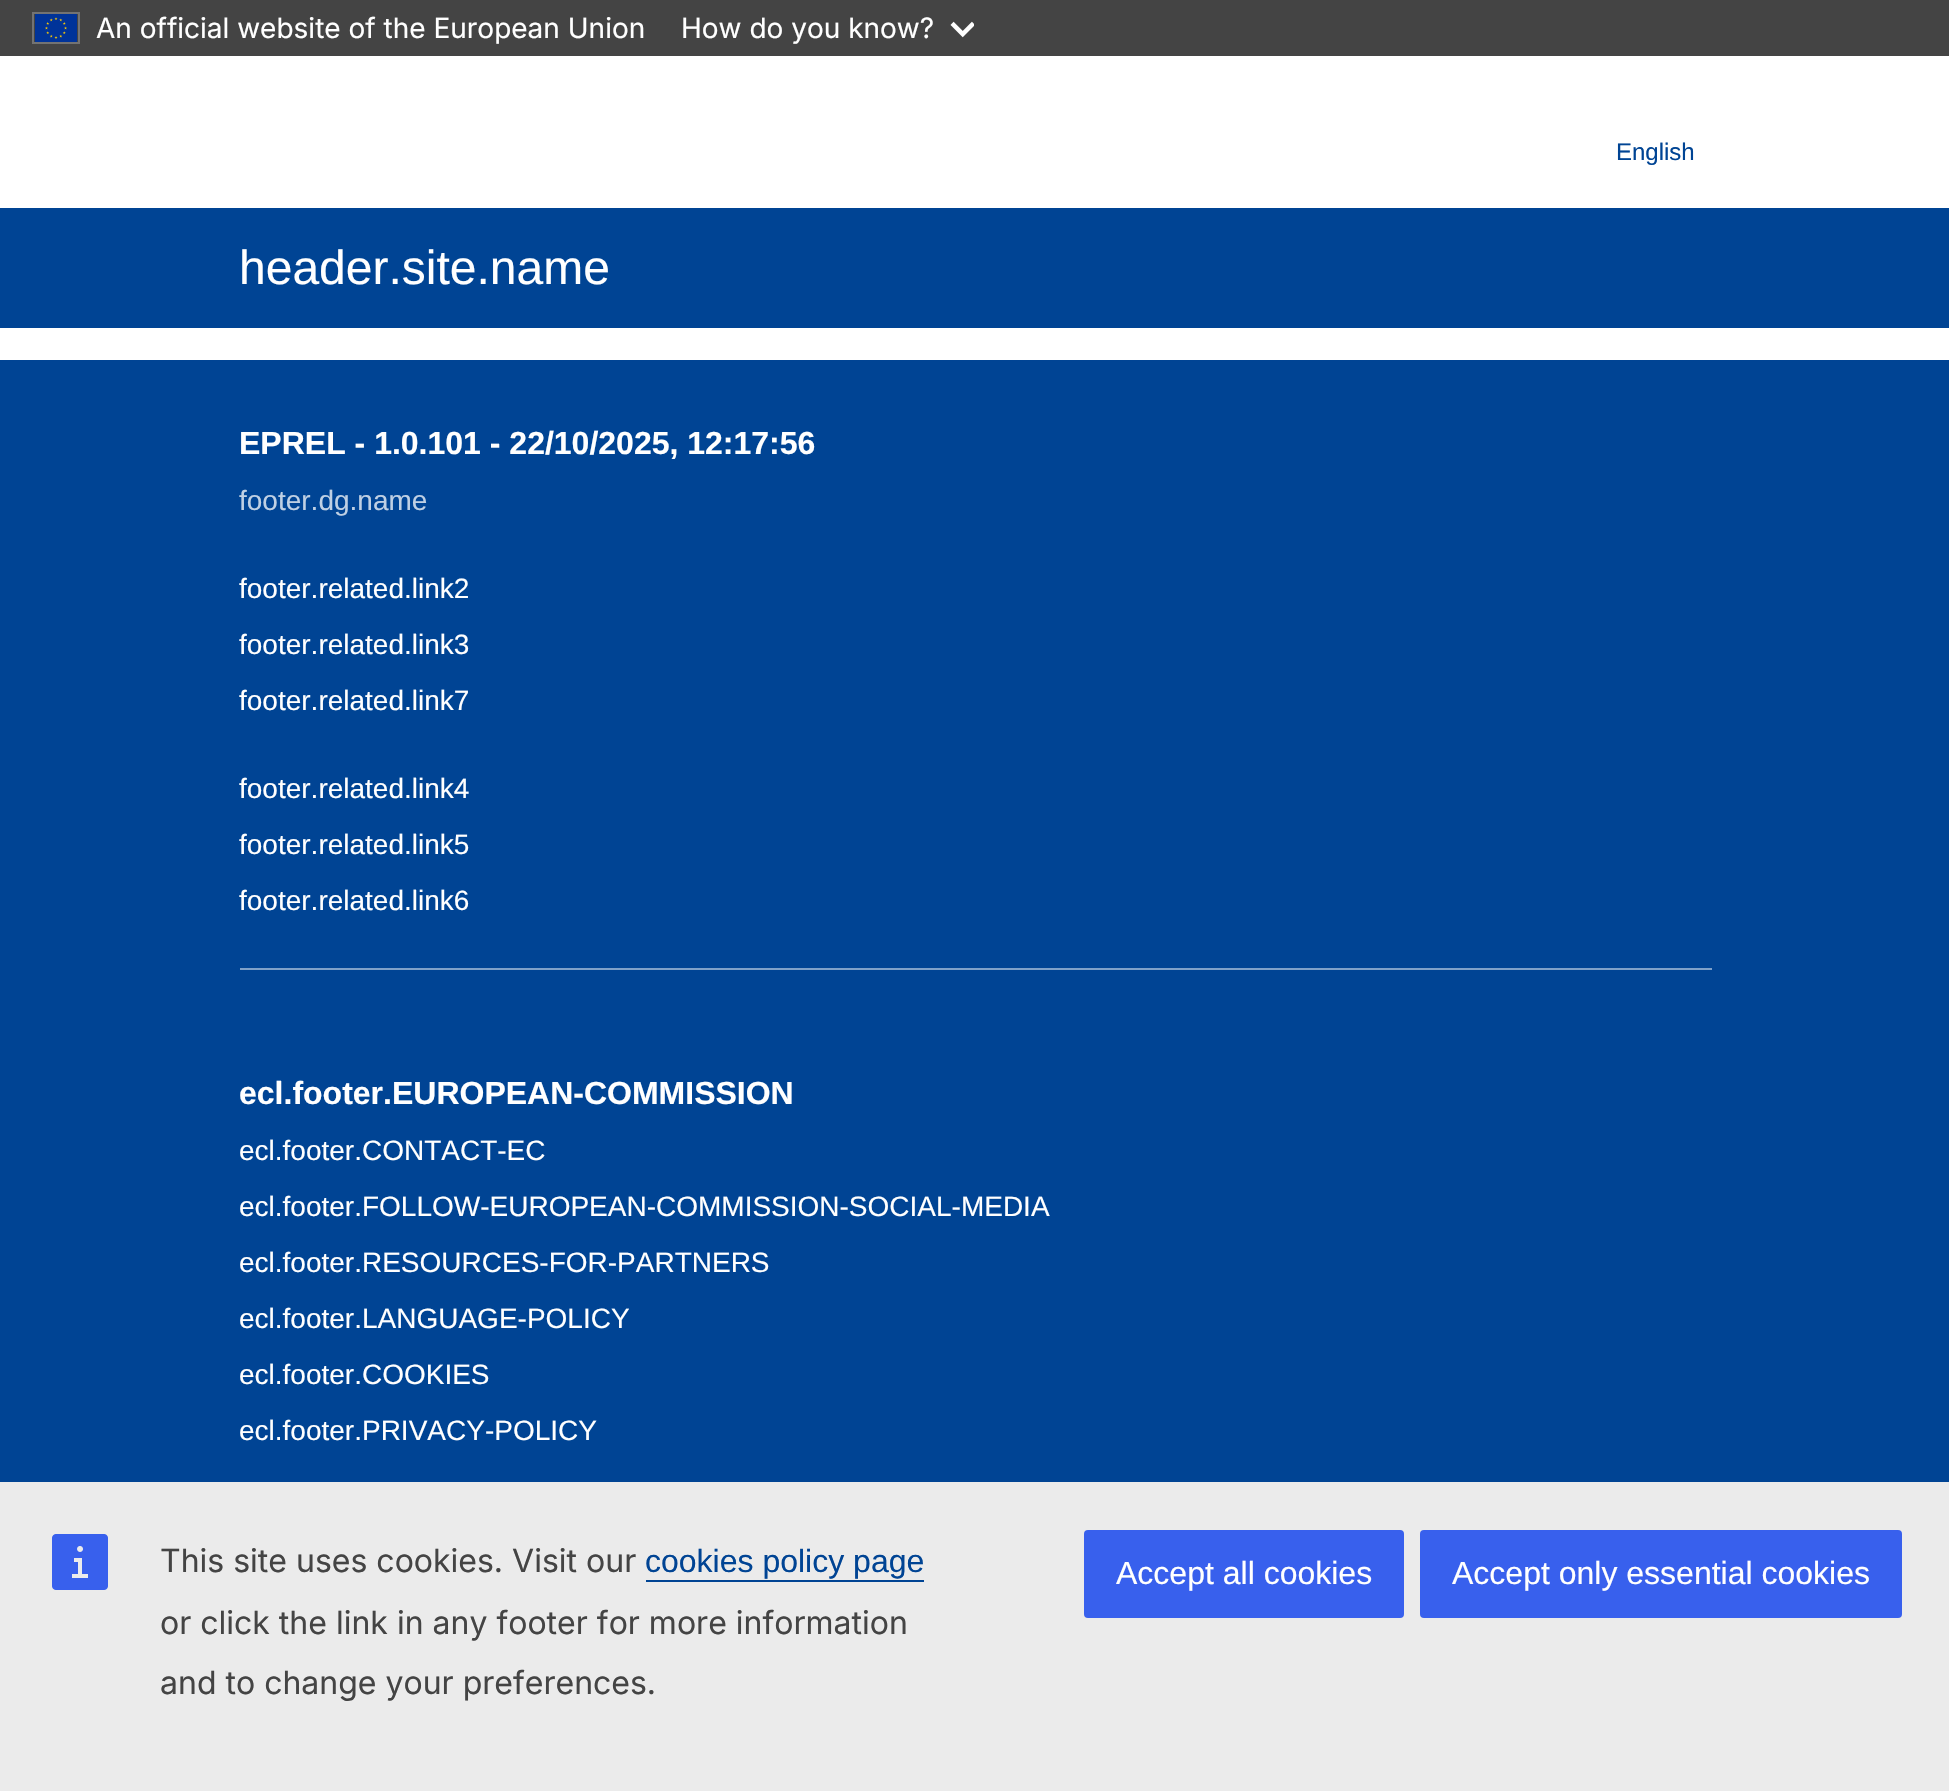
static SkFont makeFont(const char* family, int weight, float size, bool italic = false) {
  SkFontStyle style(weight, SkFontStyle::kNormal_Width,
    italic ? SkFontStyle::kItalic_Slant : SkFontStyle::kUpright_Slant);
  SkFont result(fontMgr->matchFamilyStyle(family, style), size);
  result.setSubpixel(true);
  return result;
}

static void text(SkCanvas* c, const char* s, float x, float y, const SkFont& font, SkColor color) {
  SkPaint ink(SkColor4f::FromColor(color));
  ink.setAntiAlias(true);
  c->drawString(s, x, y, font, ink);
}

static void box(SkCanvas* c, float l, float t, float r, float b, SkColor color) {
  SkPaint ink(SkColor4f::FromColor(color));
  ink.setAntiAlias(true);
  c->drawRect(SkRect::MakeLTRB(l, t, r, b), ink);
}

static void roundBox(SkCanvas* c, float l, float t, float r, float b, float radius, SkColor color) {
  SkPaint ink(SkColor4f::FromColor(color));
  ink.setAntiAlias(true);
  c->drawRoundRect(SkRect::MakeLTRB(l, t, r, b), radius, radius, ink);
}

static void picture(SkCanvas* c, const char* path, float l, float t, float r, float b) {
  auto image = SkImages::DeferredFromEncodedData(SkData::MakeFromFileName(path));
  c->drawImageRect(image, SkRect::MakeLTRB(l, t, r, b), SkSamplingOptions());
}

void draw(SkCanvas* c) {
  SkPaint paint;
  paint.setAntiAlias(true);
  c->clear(0xff004494);
  box(c, 0, 0, 1949, 56, 0xff444444);
  paint.setStyle(SkPaint::kStroke_Style);
  paint.setStrokeWidth(2);
  paint.setColor(0xff737373);
  c->drawRect(SkRect::MakeLTRB(33, 13, 79, 43), paint);
  picture(c, "img_01.png", 35, 14, 77, 42);
  SkFont face1 = makeFont("Inter", 400, 28);
  text(c, "An official website of the European Union", 96, 38, face1, 0xffffffff);
  text(c, "How do you know?", 681, 38, face1, 0xffffffff);
  picture(c, "img_02.png", 950, 21, 974, 38);
  box(c, 0, 56, 1949, 208, 0xffffffff);
  SkFont face2 = makeFont("Liberation Sans", 400, 24);
  text(c, "English", 1616, 160, face2, 0xff004494);
  SkFont face3 = makeFont("Liberation Sans", 400, 48);
  text(c, "header.site.name", 239, 284, face3, 0xffffffff);
  box(c, 0, 328, 1949, 360, 0xffffffff);
  box(c, 240, 968, 1712, 970, 0xff7fa1c9);
  SkFont face4 = makeFont("Liberation Sans", 700, 32);
  text(c, "EPREL - 1.0.101 - 22/10/2025, 12:17:56", 239, 454, face4, 0xffffffff);
  SkFont face5 = makeFont("Liberation Sans", 400, 28);
  text(c, "footer.dg.name", 239, 510, face5, 0xffbfd0e4);
  text(c, "footer.related.link2", 239, 598, face5, 0xffffffff);
  text(c, "footer.related.link3", 239, 654, face5, 0xffffffff);
  text(c, "footer.related.link7", 239, 710, face5, 0xffffffff);
  text(c, "footer.related.link4", 239, 798, face5, 0xffffffff);
  text(c, "footer.related.link5", 239, 854, face5, 0xffffffff);
  text(c, "footer.related.link6", 239, 910, face5, 0xffffffff);
  text(c, "ecl.footer.EUROPEAN-COMMISSION", 239, 1104, face4, 0xffffffff);
  text(c, "ecl.footer.CONTACT-EC", 239, 1160, face5, 0xffffffff);
  text(c, "ecl.footer.FOLLOW-EUROPEAN-COMMISSION-SOCIAL-MEDIA", 239, 1216, face5, 0xffffffff);
  text(c, "ecl.footer.RESOURCES-FOR-PARTNERS", 239, 1272, face5, 0xffffffff);
  text(c, "ecl.footer.LANGUAGE-POLICY", 239, 1328, face5, 0xffffffff);
  text(c, "ecl.footer.COOKIES", 239, 1384, face5, 0xffffffff);
  text(c, "ecl.footer.PRIVACY-POLICY", 239, 1440, face5, 0xffffffff);
  box(c, 0, 1482, 1949, 1791, 0xffebebeb);
  picture(c, "img_03.png", 52, 1534, 108, 1590);
  SkFont face6 = makeFont("Inter", 400, 32);
  text(c, "This site uses cookies. Visit our", 160, 1572, face6, 0xff444444);
  SkFont face7 = makeFont("Liberation Sans", 400, 32);
  text(c, "cookies policy page", 645, 1572, face7, 0xff004494);
  box(c, 646, 1580, 924, 1582, 0xff004494);
  text(c, "or click the link in any footer for more information", 160, 1634, face6, 0xff444444);
  text(c, "and to change your preferences.", 160, 1694, face6, 0xff444444);
  roundBox(c, 1084, 1530, 1404, 1618, 4, 0xff3860ed);
  text(c, "Accept all cookies", 1116, 1584, face7, 0xffffffff);
  roundBox(c, 1420, 1530, 1902, 1618, 4, 0xff3860ed);
  text(c, "Accept only essential cookies", 1452, 1584, face7, 0xffffffff);
}
